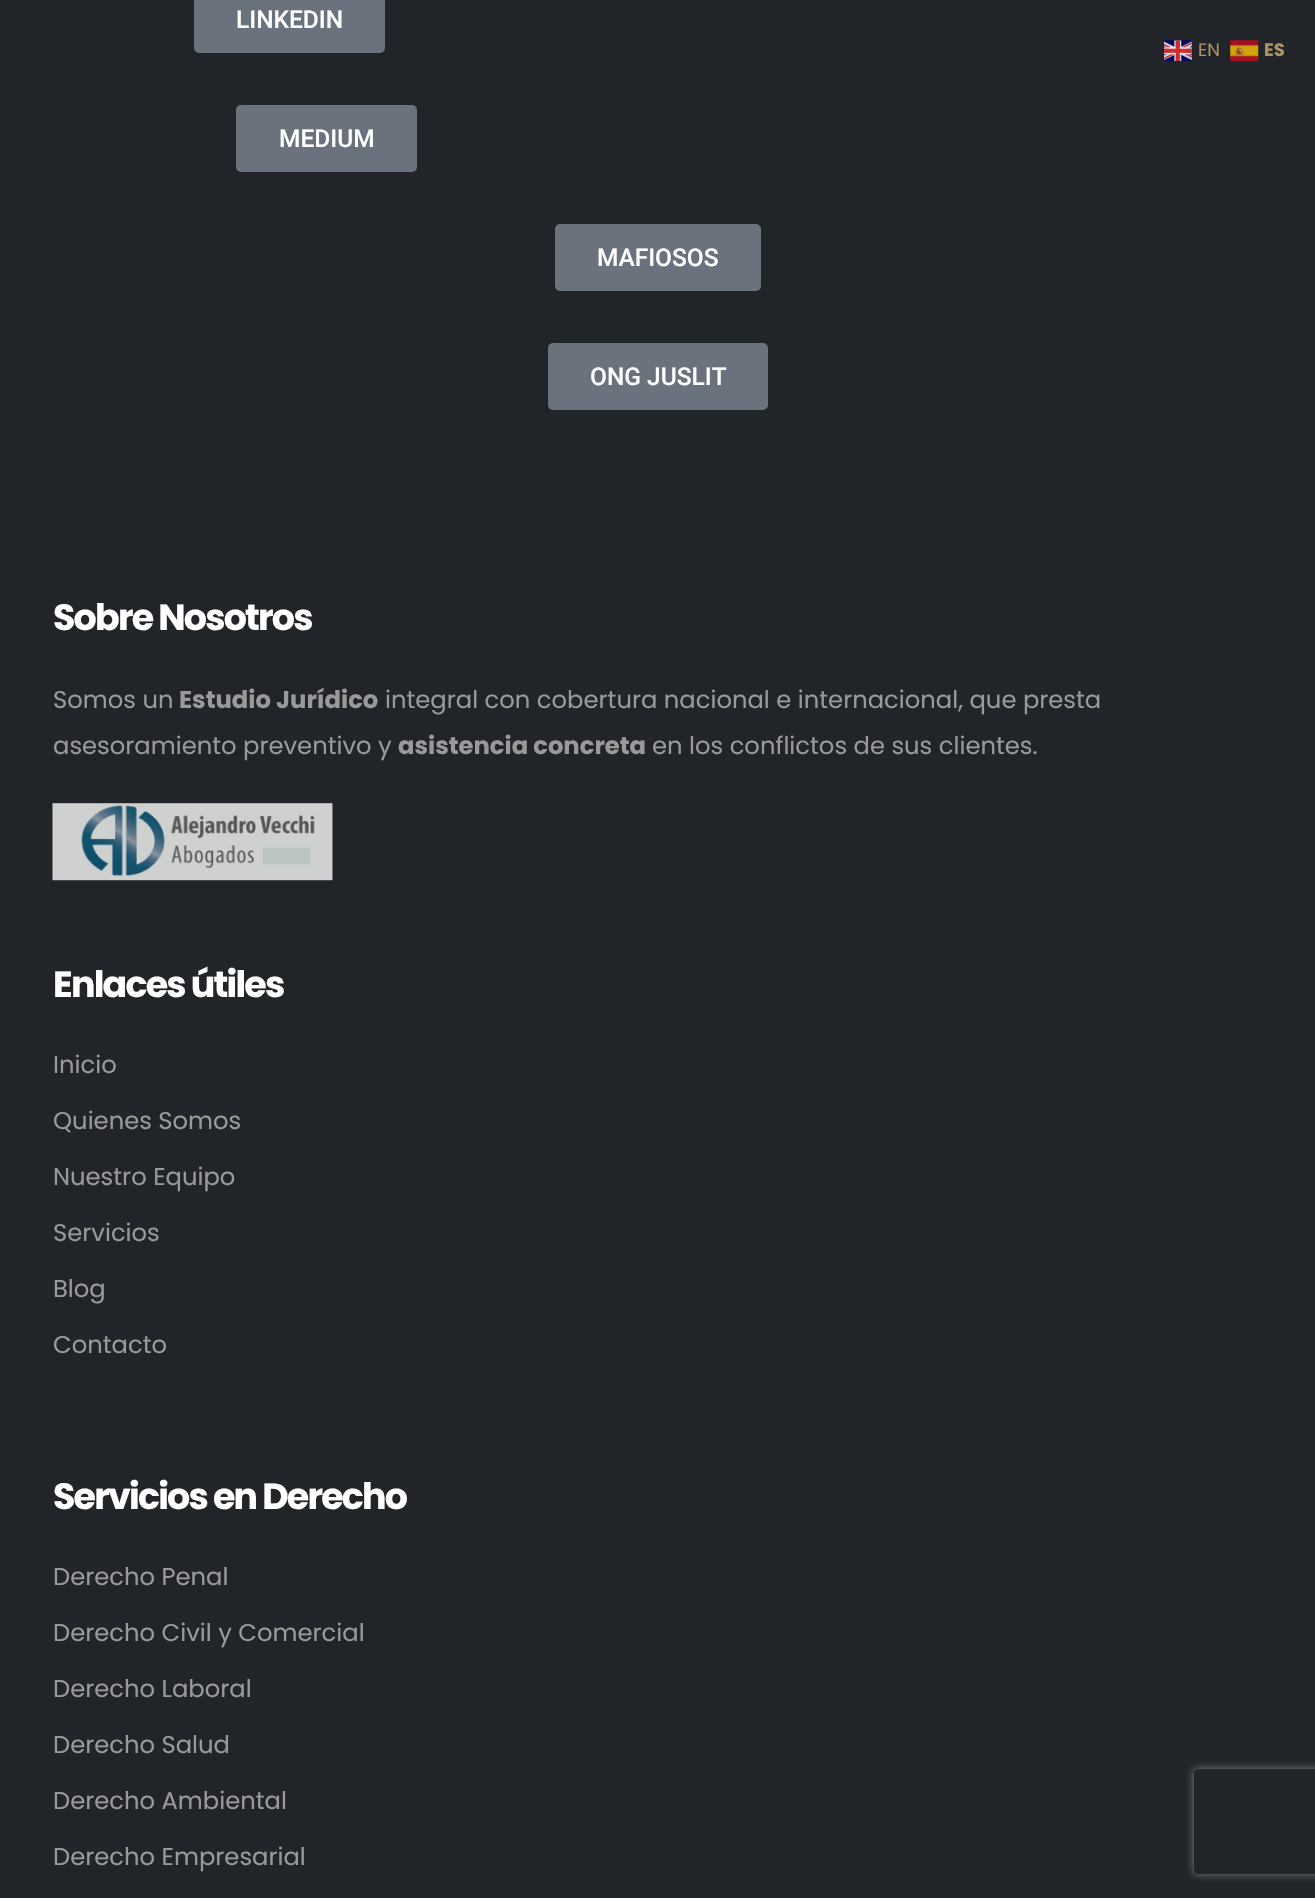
static SkFont makeFont(const char* family, int weight, float size, bool italic = false) {
  SkFontStyle style(weight, SkFontStyle::kNormal_Width,
    italic ? SkFontStyle::kItalic_Slant : SkFontStyle::kUpright_Slant);
  SkFont result(fontMgr->matchFamilyStyle(family, style), size);
  result.setSubpixel(true);
  return result;
}

static void text(SkCanvas* c, const char* s, float x, float y, const SkFont& font, SkColor color) {
  SkPaint ink(SkColor4f::FromColor(color));
  ink.setAntiAlias(true);
  c->drawString(s, x, y, font, ink);
}

static void spacedText(SkCanvas* c, const char* s, float x, float y, const SkFont& font, const SkPaint& ink, float letter, float word) {
  std::vector<SkGlyphID> glyphs(font.countText(s, strlen(s), SkTextEncoding::kUTF8));
  std::vector<float> xs(glyphs.size());
  font.textToGlyphs(s, strlen(s), SkTextEncoding::kUTF8, glyphs);
  font.getXPos(glyphs, xs, x);
  float extra = 0;
  for (size_t i = 0; i < glyphs.size(); i++) {
    xs[i] += extra;
    extra += letter + word * (glyphs[i] == font.unicharToGlyph(' '));
  }
  c->drawTextBlob(SkTextBlob::MakeFromPosHGlyphs(glyphs, xs, y, font), 0, 0, ink);
}

static void roundBox(SkCanvas* c, float l, float t, float r, float b, float radius, SkColor color) {
  SkPaint ink(SkColor4f::FromColor(color));
  ink.setAntiAlias(true);
  c->drawRoundRect(SkRect::MakeLTRB(l, t, r, b), radius, radius, ink);
}

static void picture(SkCanvas* c, const char* path, float l, float t, float r, float b) {
  auto image = SkImages::DeferredFromEncodedData(SkData::MakeFromFileName(path));
  c->drawImageRect(image, SkRect::MakeLTRB(l, t, r, b), SkSamplingOptions());
}

void draw(SkCanvas* c) {
  SkPaint paint;
  paint.setAntiAlias(true);
  c->clear(0xff212529);
  roundBox(c, 194, -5, 385, 53, 5, 0xff69727d);
  SkFont face1 = makeFont("Roboto", 500, 24.5f);
  text(c, "LINKEDIN", 236, 28, face1, 0xffffffff);
  roundBox(c, 236, 105, 417, 172, 5, 0xff69727d);
  text(c, "MEDIUM", 279, 147, face1, 0xffffffff);
  roundBox(c, 555, 224, 761, 291, 5, 0xff69727d);
  text(c, "MAFIOSOS", 597, 266, face1, 0xffffffff);
  roundBox(c, 548, 343, 768, 410, 5, 0xff69727d);
  text(c, "ONG JUSLIT", 590, 385, face1, 0xffffffff);
  SkFont face2 = makeFont("Poppins", 700, 36.4f);
  paint.setColor(0xffffffff);
  spacedText(c, "Sobre Nosotros", 53, 630, face2, paint, -1.8f, 0);
  SkFont face3 = makeFont("Poppins", 400, 24.25f);
  text(c, "Somos un", 53, 708, face3, 0xff999999);
  SkFont face4 = makeFont("Poppins", 700, 24.25f);
  text(c, "Estudio Jurídico", 179, 708, face4, 0xff999999);
  text(c, "integral con cobertura nacional e internacional, que presta", 385, 708, face3, 0xff999999);
  text(c, "asesoramiento preventivo y", 53, 754, face3, 0xff999999);
  text(c, "asistencia concreta", 398, 754, face4, 0xff999999);
  text(c, "en los conflictos de sus clientes.", 652, 754, face3, 0xff999999);
  picture(c, "img_01.png", 52, 803, 333, 881);
  spacedText(c, "Enlaces útiles", 53, 997, face2, paint, -1.8f, 0);
  text(c, "Inicio", 53, 1073, face3, 0xff999999);
  text(c, "Quienes Somos", 53, 1129, face3, 0xff999999);
  text(c, "Nuestro Equipo", 53, 1185, face3, 0xff999999);
  text(c, "Servicios", 53, 1241, face3, 0xff999999);
  text(c, "Blog", 53, 1297, face3, 0xff999999);
  text(c, "Contacto", 53, 1353, face3, 0xff999999);
  spacedText(c, "Servicios en Derecho", 53, 1509, face2, paint, -1.8f, 0);
  text(c, "Derecho Penal", 53, 1585, face3, 0xff999999);
  text(c, "Derecho Civil y Comercial", 53, 1641, face3, 0xff999999);
  text(c, "Derecho Laboral", 53, 1697, face3, 0xff999999);
  text(c, "Derecho Salud", 53, 1753, face3, 0xff999999);
  text(c, "Derecho Ambiental", 53, 1809, face3, 0xff999999);
  text(c, "Derecho Empresarial", 53, 1865, face3, 0xff999999);
  picture(c, "img_02.png", 1164, 40, 1192, 61);
  SkFont face5 = makeFont("Poppins", 400, 18);
  text(c, "EN", 1198, 56, face5, 0xffad9263);
  picture(c, "img_03.png", 1230, 40, 1259, 62);
  SkFont face6 = makeFont("Poppins", 700, 18);
  text(c, "ES", 1264, 56, face6, 0xffad9263);
  c->save();
  c->clipPath(SkPathBuilder(SkPathFillType::kEvenOdd).moveTo(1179, 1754).lineTo(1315, 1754).lineTo(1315, 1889).lineTo(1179, 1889).close().moveTo(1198, 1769).lineTo(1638, 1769).cubicTo(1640, 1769, 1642, 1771, 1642, 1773).lineTo(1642, 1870).cubicTo(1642, 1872, 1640, 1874, 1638, 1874).lineTo(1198, 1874).cubicTo(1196, 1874, 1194, 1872, 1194, 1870).lineTo(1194, 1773).cubicTo(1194, 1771, 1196, 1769, 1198, 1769).close().detach(), true);
  paint.setColor(0xff808080);
  paint.setMaskFilter(SkMaskFilter::MakeBlur(kNormal_SkBlurStyle, 4.5f));
  c->drawRoundRect(SkRect::MakeLTRB(1194, 1769, 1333, 1874), 4, 4, paint);
  paint.setMaskFilter(nullptr);
  c->restore();
}
